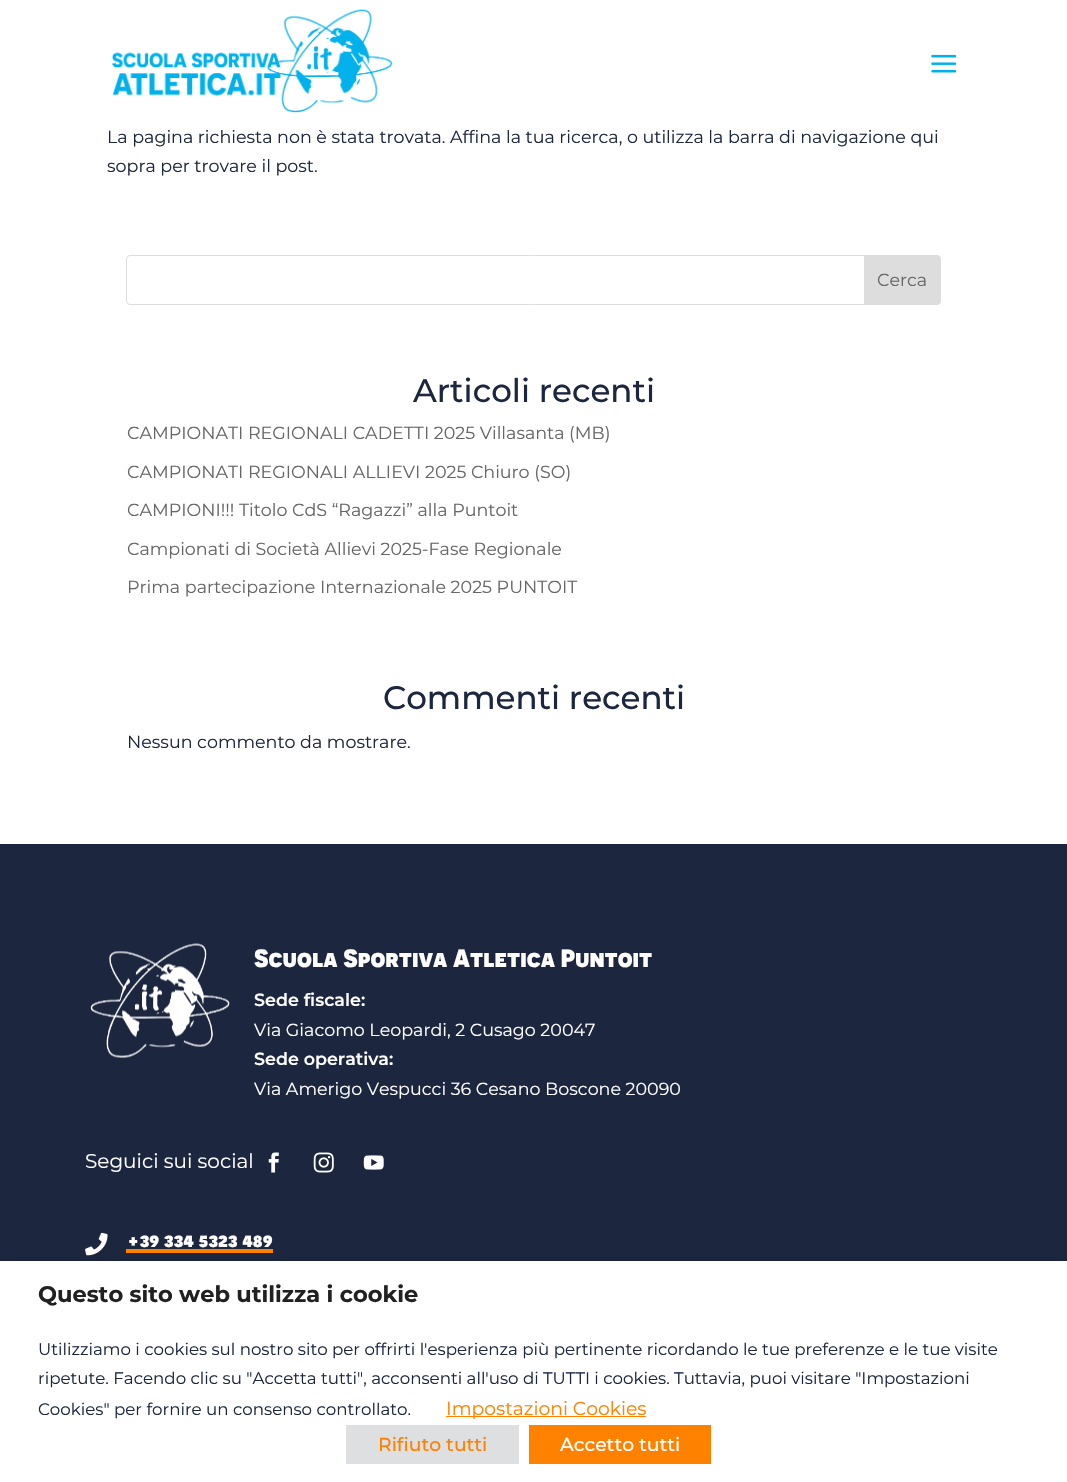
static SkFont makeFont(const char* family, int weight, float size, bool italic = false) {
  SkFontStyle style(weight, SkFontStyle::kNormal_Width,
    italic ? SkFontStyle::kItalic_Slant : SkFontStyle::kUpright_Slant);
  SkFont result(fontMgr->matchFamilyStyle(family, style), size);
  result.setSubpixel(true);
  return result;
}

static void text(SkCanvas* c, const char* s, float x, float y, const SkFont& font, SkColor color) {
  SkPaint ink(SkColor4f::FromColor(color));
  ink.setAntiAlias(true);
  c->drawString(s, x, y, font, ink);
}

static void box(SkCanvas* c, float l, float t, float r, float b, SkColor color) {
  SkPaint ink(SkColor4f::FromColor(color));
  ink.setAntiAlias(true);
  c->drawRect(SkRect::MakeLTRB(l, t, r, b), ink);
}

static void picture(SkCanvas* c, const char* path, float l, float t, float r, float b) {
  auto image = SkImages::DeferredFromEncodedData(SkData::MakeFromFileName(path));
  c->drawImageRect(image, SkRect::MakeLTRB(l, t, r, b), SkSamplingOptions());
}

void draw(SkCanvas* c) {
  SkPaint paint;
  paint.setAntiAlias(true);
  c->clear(0xffffffff);
  picture(c, "img_01.png", 112, 8, 393, 113);
  picture(c, "img_02.png", 931, 54, 957, 73);
  SkFont face1 = makeFont("Montserrat", 400, 17.5f);
  text(c, "La pagina richiesta non è stata trovata. Affina la tua ricerca, o utilizza la barra di navigazione qui", 107, 143, face1, 0xff1c263f);
  text(c, "sopra per trovare il post.", 107, 172, face1, 0xff1c263f);
  paint.setStyle(SkPaint::kStroke_Style);
  paint.setStrokeWidth(1);
  paint.setColor(0xffdddddd);
  c->drawRoundRect(SkRect::MakeLTRB(126.5f, 255.5f, 940.5f, 304.5f), 3.5f, 3.5f, paint);
  paint.setStyle(SkPaint::kFill_Style);
  c->drawPath(SkPathBuilder().moveTo(864.5f, 255.5f).lineTo(937, 255.5f).cubicTo(939, 255.5f, 940.5f, 257, 940.5f, 259).lineTo(940.5f, 301).cubicTo(940.5f, 303, 939, 304.5f, 937, 304.5f).lineTo(864.5f, 304.5f).close().detach(), paint);
  paint.setStyle(SkPaint::kStroke_Style);
  c->drawPath(SkPathBuilder().moveTo(864.5f, 255.5f).lineTo(937, 255.5f).cubicTo(939, 255.5f, 940.5f, 257, 940.5f, 259).lineTo(940.5f, 301).cubicTo(940.5f, 303, 939, 304.5f, 937, 304.5f).lineTo(864.5f, 304.5f).close().detach(), paint);
  text(c, "Cerca", 877, 286, face1, 0xff666666);
  SkFont face2 = makeFont("Montserrat", 500, 32.5f);
  text(c, "Articoli recenti", 413, 402, face2, 0xff1c263f);
  text(c, "CAMPIONATI REGIONALI CADETTI 2025 Villasanta (MB)", 127, 439, face1, 0xff666666);
  text(c, "CAMPIONATI REGIONALI ALLIEVI 2025 Chiuro (SO)", 127, 478, face1, 0xff666666);
  text(c, "CAMPIONI!!! Titolo CdS “Ragazzi” alla Puntoit", 127, 516, face1, 0xff666666);
  text(c, "Campionati di Società Allievi 2025-Fase Regionale", 127, 555, face1, 0xff666666);
  text(c, "Prima partecipazione Internazionale 2025 PUNTOIT", 127, 593, face1, 0xff666666);
  text(c, "Commenti recenti", 383, 709, face2, 0xff1c263f);
  text(c, "Nessun commento da mostrare.", 127, 748, face1, 0xff1c263f);
  box(c, 0, 844, 1067, 1261, 0xff1c263f);
  picture(c, "img_03.png", 90, 943, 230, 1058);
  SkFont face3 = makeFont("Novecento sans", 800, 25);
  text(c, "Scuola Sportiva Atletica Puntoit", 254, 967, face3, 0xffffffff);
  SkFont face4 = makeFont("Montserrat", 600, 17.5f);
  text(c, "Sede fiscale:", 254, 1006, face4, 0xffffffff);
  text(c, "Via Giacomo Leopardi, 2 Cusago 20047", 254, 1036, face1, 0xffffffff);
  text(c, "Sede operativa:", 254, 1065, face4, 0xffffffff);
  text(c, "Via Amerigo Vespucci 36 Cesano Boscone 20090", 254, 1095, face1, 0xffffffff);
  SkFont face5 = makeFont("Montserrat", 400, 20);
  text(c, "Seguici sui social", 85, 1168, face5, 0xffffffff);
  picture(c, "img_04.png", 268, 1152, 279, 1173);
  picture(c, "img_05.png", 313, 1152, 334, 1173);
  picture(c, "img_06.png", 363, 1155, 384, 1170);
  picture(c, "img_07.png", 85, 1232, 108, 1256);
  box(c, 126, 1249, 273, 1253, 0xffff8100);
  SkFont face6 = makeFont("Novecento sans", 800, 20);
  text(c, "+39 334 5323 489", 127, 1247, face6, 0xffffffff);
  paint.setStyle(SkPaint::kFill_Style);
  paint.setColor(0x80000000);
  paint.setMaskFilter(SkMaskFilter::MakeBlur(kNormal_SkBlurStyle, 6));
  c->drawRect(SkRect::MakeLTRB(0, 1268, 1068, 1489), paint);
  paint.setMaskFilter(nullptr);
  box(c, 0, 1261, 1067, 1482, 0xffffffff);
  SkFont face7 = makeFont("Montserrat", 700, 22.5f);
  text(c, "Questo sito web utilizza i cookie", 38, 1302, face7, 0xff212121);
  SkFont face8 = makeFont("Montserrat", 400, 16.67f);
  text(c, "Utilizziamo i cookies sul nostro sito per offrirti l'esperienza più pertinente ricordando le tue preferenze e le tue visite", 38, 1355, face8, 0xff1c263f);
  text(c, "ripetute. Facendo clic su \"Accetta tutti\", acconsenti all'uso di TUTTI i cookies. Tuttavia, puoi visitare \"Impostazioni", 38, 1384, face8, 0xff1c263f);
  text(c, "Cookies\" per fornire un consenso controllato.", 38, 1415, face8, 0xff1c263f);
  box(c, 446, 1416, 646, 1417, 0xffff8100);
  SkFont face9 = makeFont("Montserrat", 400, 18.75f);
  text(c, "Impostazioni Cookies", 446, 1415, face9, 0xffff8100);
  box(c, 346, 1425, 519, 1464, 0xffdedfe0);
  SkFont face10 = makeFont("Montserrat", 500, 18.75f);
  text(c, "Rifiuto tutti", 378, 1451, face10, 0xffff8100);
  box(c, 529, 1425, 711, 1464, 0xffff8100);
  text(c, "Accetto tutti", 560, 1451, face10, 0xffffffff);
}
